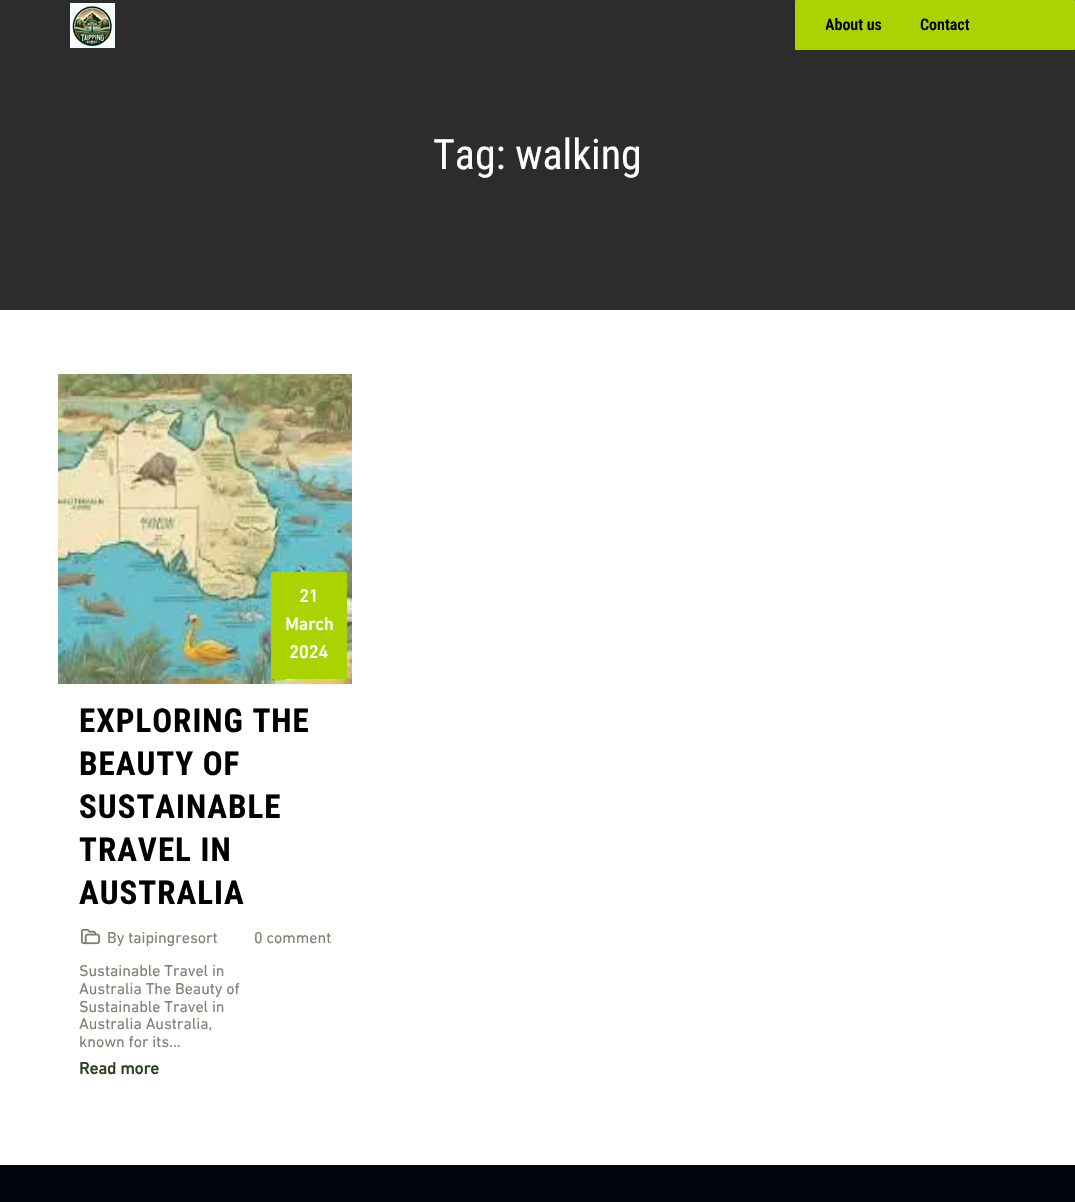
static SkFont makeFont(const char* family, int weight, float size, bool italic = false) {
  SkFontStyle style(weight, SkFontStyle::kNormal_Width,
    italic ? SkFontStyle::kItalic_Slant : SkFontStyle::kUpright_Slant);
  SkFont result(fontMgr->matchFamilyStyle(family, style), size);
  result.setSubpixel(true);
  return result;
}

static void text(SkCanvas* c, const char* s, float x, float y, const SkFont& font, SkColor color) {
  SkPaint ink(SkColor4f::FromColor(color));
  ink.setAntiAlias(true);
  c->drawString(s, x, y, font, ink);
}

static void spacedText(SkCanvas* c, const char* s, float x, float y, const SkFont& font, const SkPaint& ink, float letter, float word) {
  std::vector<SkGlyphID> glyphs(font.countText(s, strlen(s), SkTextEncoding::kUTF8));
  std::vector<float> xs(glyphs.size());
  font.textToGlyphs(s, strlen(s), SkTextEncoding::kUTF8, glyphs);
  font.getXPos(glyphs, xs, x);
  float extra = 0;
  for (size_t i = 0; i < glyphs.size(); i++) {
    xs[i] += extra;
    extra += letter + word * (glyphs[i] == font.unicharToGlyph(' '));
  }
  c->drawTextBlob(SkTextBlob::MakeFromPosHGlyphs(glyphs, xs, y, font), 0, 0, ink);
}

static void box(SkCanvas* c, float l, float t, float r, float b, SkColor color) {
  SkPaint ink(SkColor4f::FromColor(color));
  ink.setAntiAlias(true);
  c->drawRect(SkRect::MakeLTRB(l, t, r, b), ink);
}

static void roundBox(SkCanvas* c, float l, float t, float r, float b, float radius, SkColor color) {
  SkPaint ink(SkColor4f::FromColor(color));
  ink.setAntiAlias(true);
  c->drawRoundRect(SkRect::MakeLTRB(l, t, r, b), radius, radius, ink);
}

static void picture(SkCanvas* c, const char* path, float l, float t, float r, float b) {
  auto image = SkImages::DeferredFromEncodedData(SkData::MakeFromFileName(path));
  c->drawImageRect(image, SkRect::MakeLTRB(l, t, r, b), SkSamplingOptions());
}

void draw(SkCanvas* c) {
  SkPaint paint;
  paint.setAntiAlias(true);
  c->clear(0xffffffff);
  box(c, 0, 0, 1075, 310, 0xff2c2c2c);
  picture(c, "img_01.png", 70, 3, 115, 48);
  roundBox(c, 795, 0, 1075, 50, 1, 0xffabd301);
  c->save();
  c->clipPath(SkPathBuilder().moveTo(837, 13).lineTo(870, 13).cubicTo(876.5f, 13, 882, 18.5f, 882, 25).cubicTo(882, 31.5f, 876.5f, 37, 870, 37).lineTo(837, 37).cubicTo(830.5f, 37, 825, 31.5f, 825, 25).cubicTo(825, 18.5f, 830.5f, 13, 837, 13).close().detach(), true);
  SkFont face1 = makeFont("Roboto Condensed", 600, 16);
  text(c, "About us", 825, 30, face1, 0xff000000);
  c->restore();
  c->save();
  c->clipPath(SkPathBuilder().moveTo(932, 13).lineTo(958, 13).cubicTo(964.5f, 13, 970, 18.5f, 970, 25).cubicTo(970, 31.5f, 964.5f, 37, 958, 37).lineTo(932, 37).cubicTo(925.5f, 37, 920, 31.5f, 920, 25).cubicTo(920, 18.5f, 925.5f, 13, 932, 13).close().detach(), true);
  text(c, "Contact", 920, 30, face1, 0xff000000);
  c->restore();
  SkFont face2 = makeFont("Roboto Condensed", 400, 42);
  text(c, "Tag: walking", 433, 169, face2, 0xffffffff);
  picture(c, "img_02.png", 58, 374, 352, 684);
  box(c, 271, 572, 347, 679, 0xffabd301);
  SkFont face3 = makeFont("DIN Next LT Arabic", 700, 18);
  text(c, "21", 299, 602, face3, 0xffffffff);
  text(c, "March", 285, 630, face3, 0xffffffff);
  text(c, "2024", 289, 658, face3, 0xffffffff);
  SkFont face4 = makeFont("Roboto Condensed", 700, 33);
  paint.setColor(0xff000000);
  spacedText(c, "EXPLORING THE", 79, 732, face4, paint, 1, 0);
  spacedText(c, "BEAUTY OF", 79, 775, face4, paint, 1, 0);
  spacedText(c, "SUSTAINABLE", 79, 818, face4, paint, 1, 0);
  spacedText(c, "TRAVEL IN", 79, 861, face4, paint, 1, 0);
  spacedText(c, "AUSTRALIA", 79, 904, face4, paint, 1, 0);
  picture(c, "img_03.png", 80, 928, 101, 945);
  SkFont face5 = makeFont("DIN Next LT Arabic", 400, 16);
  text(c, "By taipingresort", 107, 943, face5, 0xff7a8575);
  text(c, "0 comment", 254, 943, face5, 0xff7a8575);
  text(c, "Sustainable Travel in", 79, 976, face5, 0xff7a8575);
  text(c, "Australia The Beauty of", 79, 994, face5, 0xff7a8575);
  text(c, "Sustainable Travel in", 79, 1012, face5, 0xff7a8575);
  text(c, "Australia Australia,", 79, 1029, face5, 0xff7a8575);
  text(c, "known for its…", 79, 1047, face5, 0xff7a8575);
  SkFont face6 = makeFont("DIN Next LT Arabic", 700, 17);
  text(c, "Read more", 79, 1074, face6, 0xff2b421e);
  box(c, 0, 1165, 1075, 1202, 0xff02040f);
}
